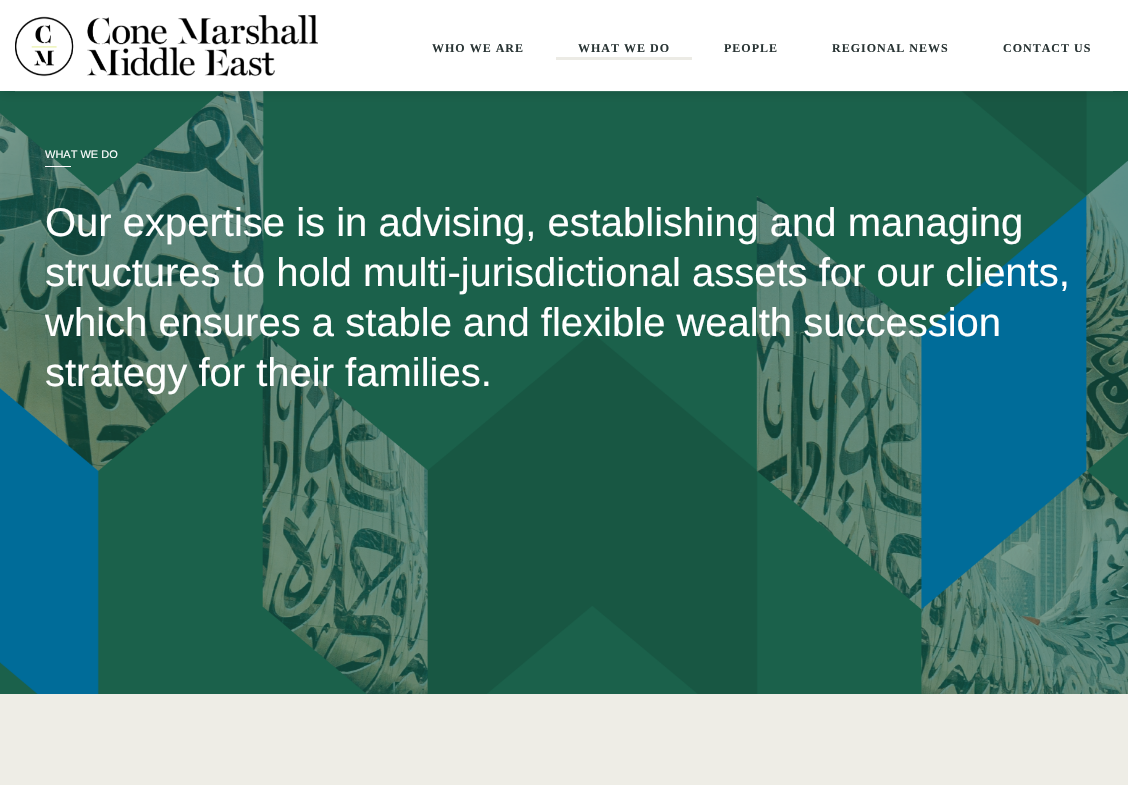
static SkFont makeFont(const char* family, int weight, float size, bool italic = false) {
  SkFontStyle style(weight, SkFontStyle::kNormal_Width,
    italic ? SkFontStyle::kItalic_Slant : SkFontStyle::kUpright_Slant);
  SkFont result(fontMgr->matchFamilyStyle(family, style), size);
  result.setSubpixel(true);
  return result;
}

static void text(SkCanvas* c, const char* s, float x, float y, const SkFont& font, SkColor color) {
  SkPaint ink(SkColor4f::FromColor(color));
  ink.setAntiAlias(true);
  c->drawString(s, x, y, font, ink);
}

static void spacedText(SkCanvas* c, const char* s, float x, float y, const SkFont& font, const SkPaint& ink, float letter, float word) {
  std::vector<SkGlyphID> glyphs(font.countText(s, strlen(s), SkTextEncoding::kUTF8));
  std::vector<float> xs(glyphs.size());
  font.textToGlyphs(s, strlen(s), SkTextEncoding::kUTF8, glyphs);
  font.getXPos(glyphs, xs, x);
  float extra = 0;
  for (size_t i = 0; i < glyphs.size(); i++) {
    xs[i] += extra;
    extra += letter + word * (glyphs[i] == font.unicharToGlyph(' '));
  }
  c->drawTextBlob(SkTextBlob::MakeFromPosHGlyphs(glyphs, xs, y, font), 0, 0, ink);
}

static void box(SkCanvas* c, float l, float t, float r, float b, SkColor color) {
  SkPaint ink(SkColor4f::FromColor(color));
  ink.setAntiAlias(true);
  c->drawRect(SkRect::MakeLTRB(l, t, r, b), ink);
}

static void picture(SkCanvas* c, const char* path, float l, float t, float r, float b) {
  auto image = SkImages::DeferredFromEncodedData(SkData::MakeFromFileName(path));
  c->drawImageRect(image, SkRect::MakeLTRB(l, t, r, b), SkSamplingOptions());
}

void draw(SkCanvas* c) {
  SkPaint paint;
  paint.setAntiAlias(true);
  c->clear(0xffffffff);
  picture(c, "img_02.png", 0, 91, 1128, 694);
  paint.setColor(0x26000000);
  paint.setMaskFilter(SkMaskFilter::MakeBlur(kNormal_SkBlurStyle, 5));
  c->drawRect(SkRect::MakeLTRB(1, 1, 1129, 92), paint);
  paint.setMaskFilter(nullptr);
  box(c, 0, 0, 1128, 91, 0xffffffff);
  picture(c, "img_01.png", 15, 15, 318, 77);
  SkFont face1 = makeFont("Liberation Serif", 700, 12);
  paint.setColor(0xff2a3535);
  spacedText(c, "WHO WE ARE", 432, 52, face1, paint, 1, 0);
  spacedText(c, "WHAT WE DO", 578, 52, face1, paint, 1, 0);
  box(c, 556, 57, 692, 60, 0xffecebe5);
  spacedText(c, "PEOPLE", 724, 52, face1, paint, 1, 0);
  spacedText(c, "REGIONAL NEWS", 832, 52, face1, paint, 1, 0);
  spacedText(c, "CONTACT US", 1003, 52, face1, paint, 1, 0);
  box(c, 15, 91, 1113, 92, 0x1affffff);
  SkFont face2 = makeFont("Liberation Sans", 400, 11);
  text(c, "WHAT WE DO", 45, 158, face2, 0xffffffff);
  box(c, 45, 166, 71, 167, 0xffffffff);
  SkFont face3 = makeFont("Liberation Sans", 400, 40);
  text(c, "Our expertise is in advising, establishing and managing", 45, 236, face3, 0xffffffff);
  text(c, "structures to hold multi-jurisdictional assets for our clients,", 45, 286, face3, 0xffffffff);
  text(c, "which ensures a stable and flexible wealth succession", 45, 336, face3, 0xffffffff);
  text(c, "strategy for their families.", 45, 386, face3, 0xffffffff);
  box(c, 0, 694, 1128, 785, 0xffeeede6);
}
